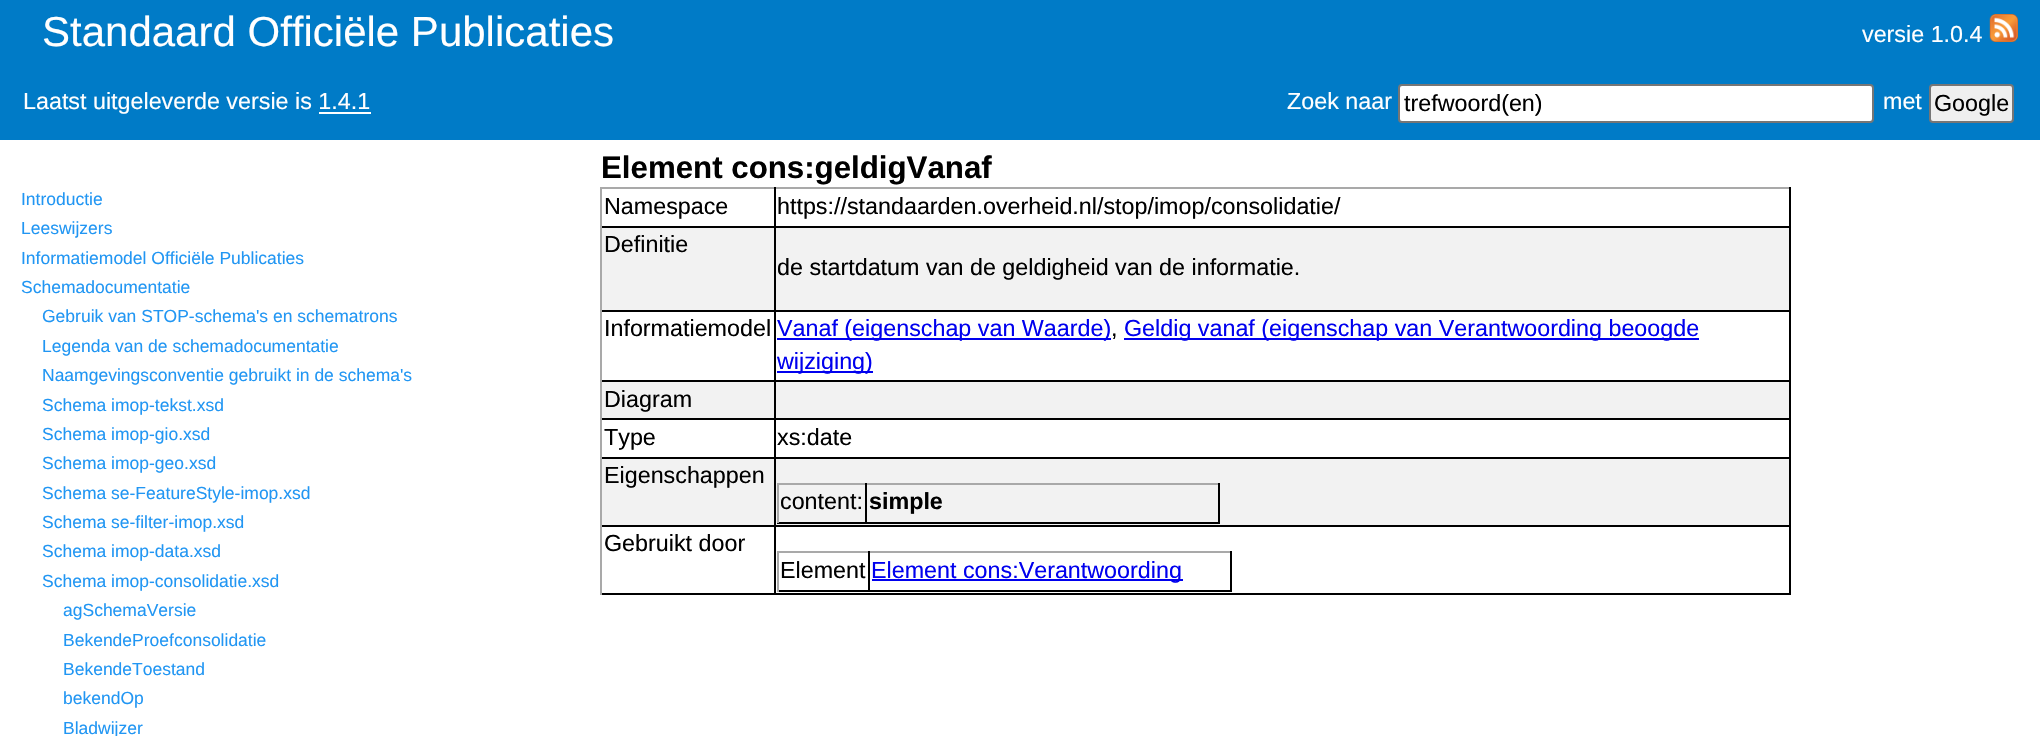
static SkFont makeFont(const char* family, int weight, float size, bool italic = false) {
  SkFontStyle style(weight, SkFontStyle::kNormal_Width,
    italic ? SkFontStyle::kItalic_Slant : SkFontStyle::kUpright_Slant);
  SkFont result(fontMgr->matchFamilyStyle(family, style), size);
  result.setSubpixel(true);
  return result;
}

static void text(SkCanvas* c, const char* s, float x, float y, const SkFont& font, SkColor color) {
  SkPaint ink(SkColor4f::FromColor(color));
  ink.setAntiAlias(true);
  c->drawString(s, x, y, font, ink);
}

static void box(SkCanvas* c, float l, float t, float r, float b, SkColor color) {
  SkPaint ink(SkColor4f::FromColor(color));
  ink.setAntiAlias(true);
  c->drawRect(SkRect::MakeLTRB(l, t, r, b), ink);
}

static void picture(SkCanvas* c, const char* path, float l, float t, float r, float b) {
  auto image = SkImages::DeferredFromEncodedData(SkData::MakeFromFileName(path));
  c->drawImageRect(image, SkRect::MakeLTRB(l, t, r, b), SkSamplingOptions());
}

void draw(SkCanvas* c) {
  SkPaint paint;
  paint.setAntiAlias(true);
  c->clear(0xffffffff);
  box(c, 0, 0, 2040, 140, 0xff007bc7);
  SkFont face1 = makeFont("Liberation Sans", 400, 42);
  text(c, "Standaard Officiële Publicaties", 42, 46, face1, 0xffffffff);
  SkFont face2 = makeFont("Liberation Sans", 400, 23.3f);
  text(c, "versie 1.0.4", 1862, 42, face2, 0xffffffff);
  picture(c, "img_01.png", 1989, 14, 2018, 42);
  text(c, "Laatst uitgeleverde versie is 1.4.1", 23, 109, face2, 0xffffffff);
  box(c, 319, 112, 371, 114, 0xffffffff);
  text(c, "Zoek naar", 1287, 109, face2, 0xffffffff);
  paint.setColor(0xffffffff);
  c->drawRoundRect(SkRect::MakeLTRB(1399, 85, 1873, 122), 3, 3, paint);
  paint.setStyle(SkPaint::kStroke_Style);
  paint.setStrokeWidth(2);
  paint.setColor(0xff767676);
  c->drawRoundRect(SkRect::MakeLTRB(1399, 85, 1873, 122), 3, 3, paint);
  text(c, "trefwoord(en)", 1404, 111, face2, 0xff000000);
  text(c, "met", 1883, 109, face2, 0xffffffff);
  paint.setStyle(SkPaint::kFill_Style);
  paint.setColor(0xffefefef);
  c->drawRoundRect(SkRect::MakeLTRB(1930, 85, 2013, 122), 3, 3, paint);
  paint.setStyle(SkPaint::kStroke_Style);
  paint.setColor(0xff767676);
  c->drawRoundRect(SkRect::MakeLTRB(1930, 85, 2013, 122), 3, 3, paint);
  text(c, "Google", 1934, 111, face2, 0xff000000);
  SkFont face3 = makeFont("Liberation Sans", 400, 17.5f);
  text(c, "Introductie", 21, 205, face3, 0xff2196f3);
  text(c, "Leeswijzers", 21, 234, face3, 0xff2196f3);
  text(c, "Informatiemodel Officiële Publicaties", 21, 264, face3, 0xff2196f3);
  text(c, "Schemadocumentatie", 21, 293, face3, 0xff2196f3);
  text(c, "Gebruik van STOP-schema's en schematrons", 42, 322, face3, 0xff2196f3);
  text(c, "Legenda van de schemadocumentatie", 42, 352, face3, 0xff2196f3);
  text(c, "Naamgevingsconventie gebruikt in de schema's", 42, 381, face3, 0xff2196f3);
  text(c, "Schema imop-tekst.xsd", 42, 411, face3, 0xff2196f3);
  text(c, "Schema imop-gio.xsd", 42, 440, face3, 0xff2196f3);
  text(c, "Schema imop-geo.xsd", 42, 469, face3, 0xff2196f3);
  text(c, "Schema se-FeatureStyle-imop.xsd", 42, 499, face3, 0xff2196f3);
  text(c, "Schema se-filter-imop.xsd", 42, 528, face3, 0xff2196f3);
  text(c, "Schema imop-data.xsd", 42, 557, face3, 0xff2196f3);
  text(c, "Schema imop-consolidatie.xsd", 42, 587, face3, 0xff2196f3);
  text(c, "agSchemaVersie", 63, 616, face3, 0xff2196f3);
  text(c, "BekendeProefconsolidatie", 63, 646, face3, 0xff2196f3);
  text(c, "BekendeToestand", 63, 675, face3, 0xff2196f3);
  text(c, "bekendOp", 63, 704, face3, 0xff2196f3);
  text(c, "Bladwijzer", 63, 734, face3, 0xff2196f3);
  SkFont face4 = makeFont("Liberation Sans", 700, 31.25f);
  text(c, "Element cons:geldigVanaf", 601, 178, face4, 0xff000000);
  box(c, 600, 593, 1790, 595, 0xff000000);
  box(c, 600, 187, 1790, 189, 0xffa9a9a9);
  box(c, 1789, 226, 1791, 595, 0xff000000);
  box(c, 1789, 187, 1791, 228, 0xff000000);
  box(c, 602, 228, 1789, 310, 0xfff2f2f2);
  box(c, 602, 382, 1789, 418, 0xfff2f2f2);
  box(c, 602, 459, 1789, 525, 0xfff2f2f2);
  box(c, 774, 525, 776, 595, 0xff000000);
  box(c, 774, 525, 1790, 527, 0xff000000);
  box(c, 774, 457, 776, 527, 0xff000000);
  box(c, 774, 457, 1790, 459, 0xff000000);
  box(c, 774, 418, 776, 459, 0xff000000);
  box(c, 774, 418, 1790, 420, 0xff000000);
  box(c, 774, 380, 776, 420, 0xff000000);
  box(c, 774, 380, 1790, 382, 0xff000000);
  box(c, 774, 310, 776, 382, 0xff000000);
  box(c, 774, 310, 1790, 312, 0xff000000);
  box(c, 774, 226, 776, 312, 0xff000000);
  box(c, 774, 226, 1790, 228, 0xff000000);
  box(c, 774, 187, 776, 228, 0xff000000);
  box(c, 600, 525, 602, 595, 0xffa9a9a9);
  box(c, 600, 525, 775, 527, 0xff000000);
  box(c, 600, 457, 602, 527, 0xffa9a9a9);
  box(c, 600, 457, 775, 459, 0xff000000);
  box(c, 600, 418, 602, 459, 0xffa9a9a9);
  box(c, 600, 418, 775, 420, 0xff000000);
  box(c, 600, 380, 602, 420, 0xffa9a9a9);
  box(c, 600, 380, 775, 382, 0xff000000);
  box(c, 600, 310, 602, 382, 0xffa9a9a9);
  box(c, 600, 310, 775, 312, 0xff000000);
  box(c, 600, 226, 602, 312, 0xffa9a9a9);
  box(c, 600, 226, 775, 228, 0xff000000);
  box(c, 600, 187, 602, 228, 0xffa9a9a9);
  text(c, "Namespace", 604, 214, face2, 0xff000000);
  text(c, "https://standaarden.overheid.nl/stop/imop/consolidatie/", 777, 214, face2, 0xff000000);
  text(c, "Definitie", 604, 252, face2, 0xff000000);
  text(c, "de startdatum van de geldigheid van de informatie.", 777, 275, face2, 0xff000000);
  text(c, "Informatiemodel", 604, 336, face2, 0xff000000);
  box(c, 777, 338, 1111, 340, 0xff0000ee);
  text(c, "Vanaf (eigenschap van Waarde)", 777, 336, face2, 0xff0000ee);
  text(c, ",", 1111, 336, face2, 0xff000000);
  box(c, 1124, 338, 1699, 340, 0xff0000ee);
  text(c, "Geldig vanaf (eigenschap van Verantwoording beoogde", 1124, 336, face2, 0xff0000ee);
  box(c, 777, 371, 873, 373, 0xff0000ee);
  text(c, "wijziging)", 777, 369, face2, 0xff0000ee);
  text(c, "Diagram", 604, 407, face2, 0xff000000);
  text(c, "Type", 604, 445, face2, 0xff000000);
  text(c, "xs:date", 777, 445, face2, 0xff000000);
  text(c, "Eigenschappen", 604, 483, face2, 0xff000000);
  box(c, 777, 522, 1220, 524, 0xff000000);
  box(c, 777, 483, 1220, 485, 0xffa9a9a9);
  box(c, 865, 483, 867, 523, 0xff000000);
  box(c, 777, 483, 779, 523, 0xffa9a9a9);
  text(c, "content:", 780, 509, face2, 0xff000000);
  box(c, 1218, 483, 1220, 523, 0xff000000);
  SkFont face5 = makeFont("Liberation Sans", 700, 23.3f);
  text(c, "simple", 869, 509, face5, 0xff000000);
  text(c, "Gebruikt door", 604, 551, face2, 0xff000000);
  box(c, 777, 590, 1232, 592, 0xff000000);
  box(c, 777, 551, 1232, 553, 0xffa9a9a9);
  box(c, 868, 551, 870, 592, 0xff000000);
  box(c, 777, 551, 779, 592, 0xffa9a9a9);
  text(c, "Element", 780, 578, face2, 0xff000000);
  box(c, 1230, 551, 1232, 592, 0xff000000);
  box(c, 872, 579, 1183, 581, 0xff0000ee);
  text(c, "Element cons:Verantwoording", 871, 578, face2, 0xff0000ee);
}
